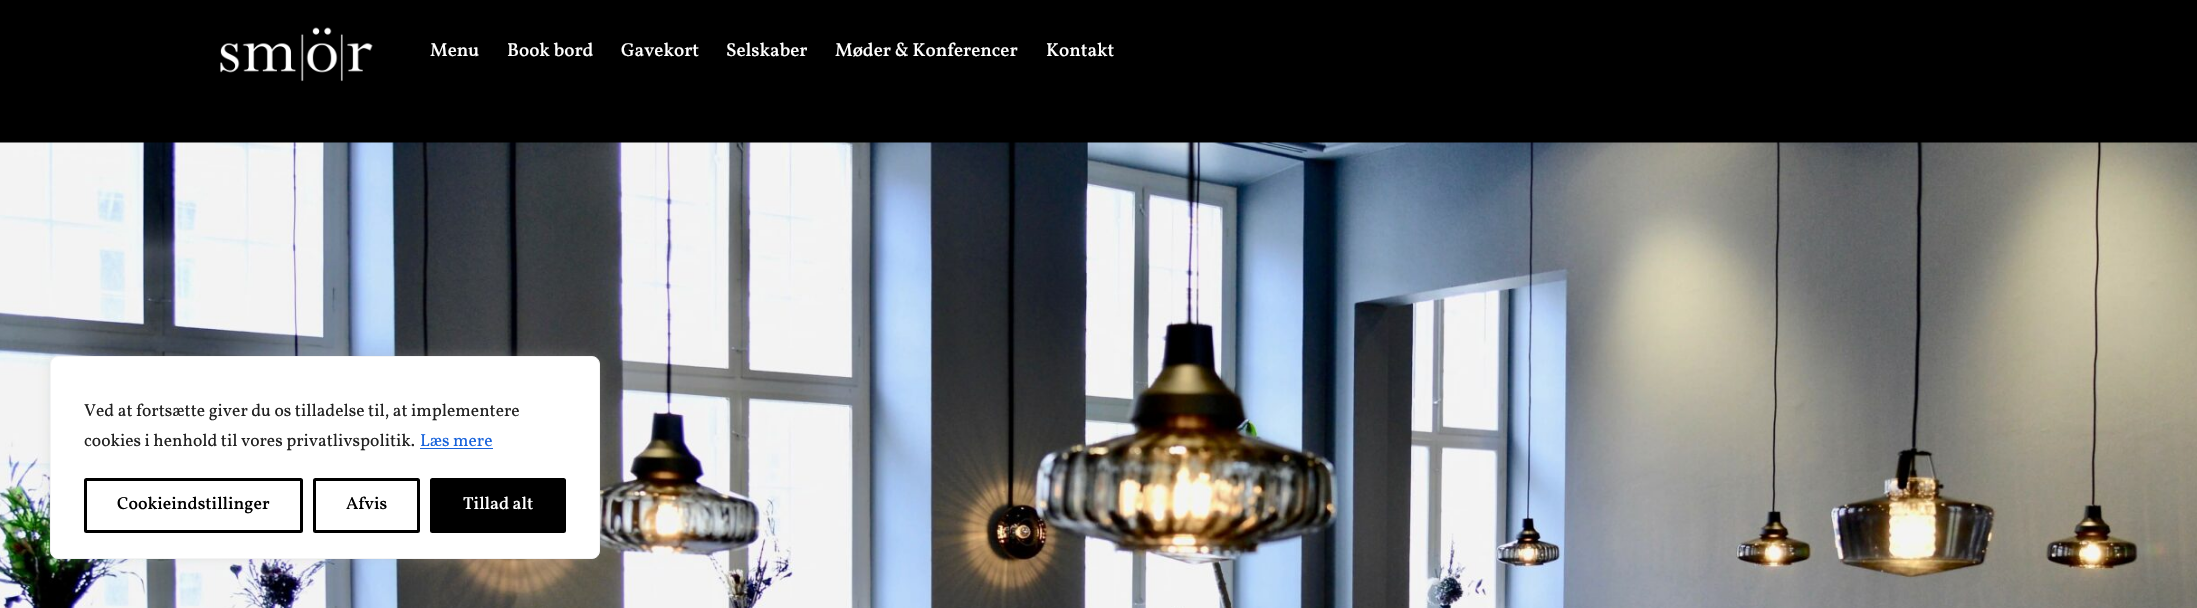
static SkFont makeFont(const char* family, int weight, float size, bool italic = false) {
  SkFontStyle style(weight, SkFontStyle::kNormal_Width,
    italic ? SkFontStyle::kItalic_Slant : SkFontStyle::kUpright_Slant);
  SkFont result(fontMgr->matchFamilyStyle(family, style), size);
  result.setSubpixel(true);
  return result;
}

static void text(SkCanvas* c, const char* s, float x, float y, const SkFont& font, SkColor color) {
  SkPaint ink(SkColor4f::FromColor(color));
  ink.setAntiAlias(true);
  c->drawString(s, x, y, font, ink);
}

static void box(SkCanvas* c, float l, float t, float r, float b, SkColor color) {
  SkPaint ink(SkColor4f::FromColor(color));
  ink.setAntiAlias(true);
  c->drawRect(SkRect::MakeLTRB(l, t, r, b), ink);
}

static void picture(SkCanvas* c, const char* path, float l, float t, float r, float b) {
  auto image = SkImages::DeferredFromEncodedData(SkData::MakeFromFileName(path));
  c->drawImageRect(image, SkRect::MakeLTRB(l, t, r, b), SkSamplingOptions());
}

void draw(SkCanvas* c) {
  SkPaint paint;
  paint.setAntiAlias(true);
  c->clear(0xff000000);
  picture(c, "img_01.png", 220, 27, 373, 82);
  SkFont face1 = makeFont("Vollkorn", 500, 18.75f);
  text(c, "Menu", 430, 56, face1, 0xffffffff);
  text(c, "Book bord", 507, 56, face1, 0xffffffff);
  text(c, "Gavekort", 621, 56, face1, 0xffffffff);
  text(c, "Selskaber", 726, 56, face1, 0xffffffff);
  text(c, "Møder & Konferencer", 835, 56, face1, 0xffffffff);
  text(c, "Kontakt", 1046, 56, face1, 0xffffffff);
  picture(c, "img_02.png", 0, 142, 2197, 608);
  paint.setColor(0x4dacabab);
  paint.setMaskFilter(SkMaskFilter::MakeBlur(kNormal_SkBlurStyle, 6));
  c->drawRoundRect(SkRect::MakeLTRB(50, 355, 600, 558), 8, 8, paint);
  paint.setMaskFilter(nullptr);
  paint.setColor(0xffffffff);
  c->drawRoundRect(SkRect::MakeLTRB(50.5f, 356.5f, 599.5f, 558.5f), 7.5f, 7.5f, paint);
  paint.setStyle(SkPaint::kStroke_Style);
  paint.setStrokeWidth(1);
  paint.setColor(0xfff4f4f4);
  c->drawRoundRect(SkRect::MakeLTRB(50.5f, 356.5f, 599.5f, 558.5f), 7.5f, 7.5f, paint);
  SkFont face2 = makeFont("Vollkorn", 400, 17.5f);
  text(c, "Ved at fortsætte giver du os tilladelse til, at implementere", 84, 416, face2, 0xff212121);
  text(c, "cookies i henhold til vores privatlivspolitik.", 84, 446, face2, 0xff212121);
  text(c, "Læs mere", 420, 446, face2, 0xff1863dc);
  box(c, 420, 448, 493, 449, 0xff1863dc);
  paint.setStrokeWidth(3);
  paint.setColor(0xff000000);
  c->drawRoundRect(SkRect::MakeLTRB(85.5f, 479.5f, 301.5f, 531.5f), 1, 1, paint);
  SkFont face3 = makeFont("Vollkorn", 500, 17.5f);
  text(c, "Cookieindstillinger", 117, 509, face3, 0xff000000);
  c->drawRoundRect(SkRect::MakeLTRB(314.5f, 479.5f, 418.5f, 531.5f), 1, 1, paint);
  text(c, "Afvis", 346, 509, face3, 0xff000000);
  paint.setStyle(SkPaint::kFill_Style);
  c->drawRoundRect(SkRect::MakeLTRB(431.5f, 479.5f, 564.5f, 531.5f), 1, 1, paint);
  paint.setStyle(SkPaint::kStroke_Style);
  c->drawRoundRect(SkRect::MakeLTRB(431.5f, 479.5f, 564.5f, 531.5f), 1, 1, paint);
  text(c, "Tillad alt", 463, 509, face3, 0xffffffff);
}
